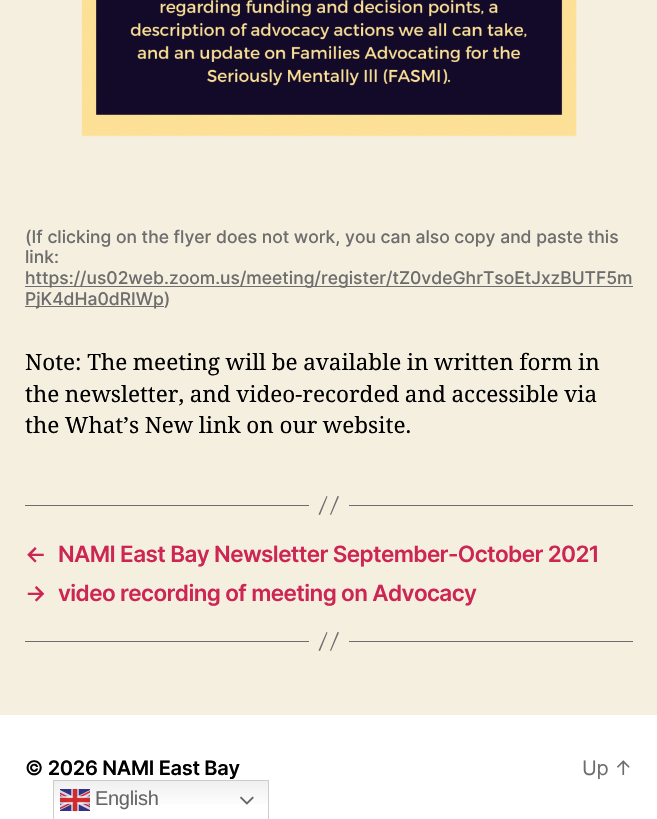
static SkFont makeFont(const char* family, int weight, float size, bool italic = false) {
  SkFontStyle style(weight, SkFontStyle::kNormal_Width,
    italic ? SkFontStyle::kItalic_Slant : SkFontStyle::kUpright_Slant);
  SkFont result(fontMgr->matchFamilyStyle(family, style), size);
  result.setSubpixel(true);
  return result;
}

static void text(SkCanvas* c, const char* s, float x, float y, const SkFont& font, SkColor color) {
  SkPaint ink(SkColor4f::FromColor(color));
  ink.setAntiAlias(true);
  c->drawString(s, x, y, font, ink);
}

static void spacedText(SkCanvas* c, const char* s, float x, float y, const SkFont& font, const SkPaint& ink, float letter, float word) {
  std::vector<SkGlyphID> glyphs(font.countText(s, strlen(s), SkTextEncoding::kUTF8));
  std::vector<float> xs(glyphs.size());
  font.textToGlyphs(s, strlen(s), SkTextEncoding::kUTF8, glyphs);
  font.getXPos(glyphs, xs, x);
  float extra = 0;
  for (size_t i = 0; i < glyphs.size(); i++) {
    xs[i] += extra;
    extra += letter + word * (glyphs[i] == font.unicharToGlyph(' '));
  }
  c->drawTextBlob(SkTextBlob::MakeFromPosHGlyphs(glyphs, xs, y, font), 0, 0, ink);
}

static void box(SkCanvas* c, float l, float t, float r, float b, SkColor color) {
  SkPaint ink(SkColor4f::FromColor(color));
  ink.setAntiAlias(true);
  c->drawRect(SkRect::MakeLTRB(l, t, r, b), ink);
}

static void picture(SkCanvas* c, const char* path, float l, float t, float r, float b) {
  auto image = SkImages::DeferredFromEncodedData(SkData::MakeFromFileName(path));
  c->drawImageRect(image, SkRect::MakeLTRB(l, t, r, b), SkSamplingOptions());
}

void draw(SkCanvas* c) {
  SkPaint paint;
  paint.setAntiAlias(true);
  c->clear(0xfff5efe0);
  picture(c, "img_01.png", 81, 0, 577, 137);
  SkFont face1 = makeFont("Inter", 500, 17.5f);
  text(c, "(If clicking on the flyer does not work, you can also copy and paste this", 25, 243, face1, 0xff6d6d6d);
  text(c, "link:", 25, 263, face1, 0xff6d6d6d);
  box(c, 25, 286, 633, 287, 0xff6d6d6d);
  text(c, "https://us02web.zoom.us/meeting/register/tZ0vdeGhrTsoEtJxzBUTF5m", 25, 284, face1, 0xff6d6d6d);
  box(c, 25, 306, 164, 307, 0xff6d6d6d);
  text(c, "PjK4dHa0dRIWp)", 25, 305, face1, 0xff6d6d6d);
  SkFont face2 = makeFont("Noto Serif", 400, 22.5f);
  paint.setColor(0xff000000);
  spacedText(c, "Note: The meeting will be available in written form in", 25, 370, face2, paint, 0, -0.25f);
  spacedText(c, "the newsletter, and video-recorded and accessible via", 25, 402, face2, paint, 0, -0.25f);
  spacedText(c, "the What’s New link on our website.", 25, 433, face2, paint, 0, -0.25f);
  box(c, 349, 505, 633, 506, 0xff6d6d6d);
  box(c, 25, 505, 309, 506, 0xff6d6d6d);
  paint.setColor(0xff6d6d6d);
  c->drawPath(SkPathBuilder().moveTo(326.5f, 496).lineTo(327.5f, 496.5f).lineTo(320, 515).lineTo(318.5f, 514.5f).close().moveTo(337.5f, 496).lineTo(339, 496.5f).lineTo(331, 515).lineTo(330, 514.5f).close().detach(), paint);
  SkFont face3 = makeFont("Inter", 600, 22.5f);
  paint.setColor(0xffcd2653);
  spacedText(c, "←", 25, 562, face3, paint, -0.6f, 0);
  spacedText(c, "NAMI East Bay Newsletter September-October 2021", 58, 562, face3, paint, -0.6f, 0);
  spacedText(c, "→", 25, 601, face3, paint, -0.6f, 0);
  spacedText(c, "video recording of meeting on Advocacy", 58, 601, face3, paint, -0.6f, 0);
  box(c, 349, 641, 633, 642, 0xff6d6d6d);
  box(c, 25, 641, 309, 642, 0xff6d6d6d);
  paint.setColor(0xff6d6d6d);
  c->drawPath(SkPathBuilder().moveTo(326.5f, 632).lineTo(327.5f, 632.5f).lineTo(320, 651).lineTo(318.5f, 650.5f).close().moveTo(337.5f, 632).lineTo(339, 632.5f).lineTo(331, 651).lineTo(330, 650.5f).close().detach(), paint);
  box(c, 0, 715, 657, 819, 0xffffffff);
  SkFont face4 = makeFont("Inter", 600, 20);
  paint.setColor(0xff000000);
  spacedText(c, "© 2026 NAMI East Bay", 25, 775, face4, paint, -0.3f, 0);
  SkFont face5 = makeFont("Inter", 400, 20);
  paint.setColor(0xff6d6d6d);
  spacedText(c, "Up ↑", 582, 775, face5, paint, -0.3f, 0);
  {
    const SkColor colors[] = {0xffefefef, 0xffffffff};
    const float stops[] = {0, 0.7f};
    const SkPoint ends[] = {{161, 780}, {161, 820}};
    paint.setShader(SkGradientShader::MakeLinear(ends, colors, stops, 2, SkTileMode::kClamp));
    paint.setAlpha(255);
  }
  c->drawRect(SkRect::MakeLTRB(54, 781, 268, 804), paint);
  paint.setStyle(SkPaint::kStroke_Style);
  paint.setStrokeWidth(1);
  paint.setShader(nullptr);
  paint.setColor(0xffcccccc);
  c->drawRect(SkRect::MakeLTRB(53.5f, 780.5f, 268.5f, 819.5f), paint);
  picture(c, "img_02.png", 60, 788, 90, 812);
  SkFont face6 = makeFont("Liberation Sans", 400, 20);
  paint.setStyle(SkPaint::kFill_Style);
  paint.setColor(0xff666666);
  spacedText(c, "English", 95, 805, face6, paint, -0.3f, 0);
  picture(c, "img_03.png", 240, 796, 254, 805);
}
